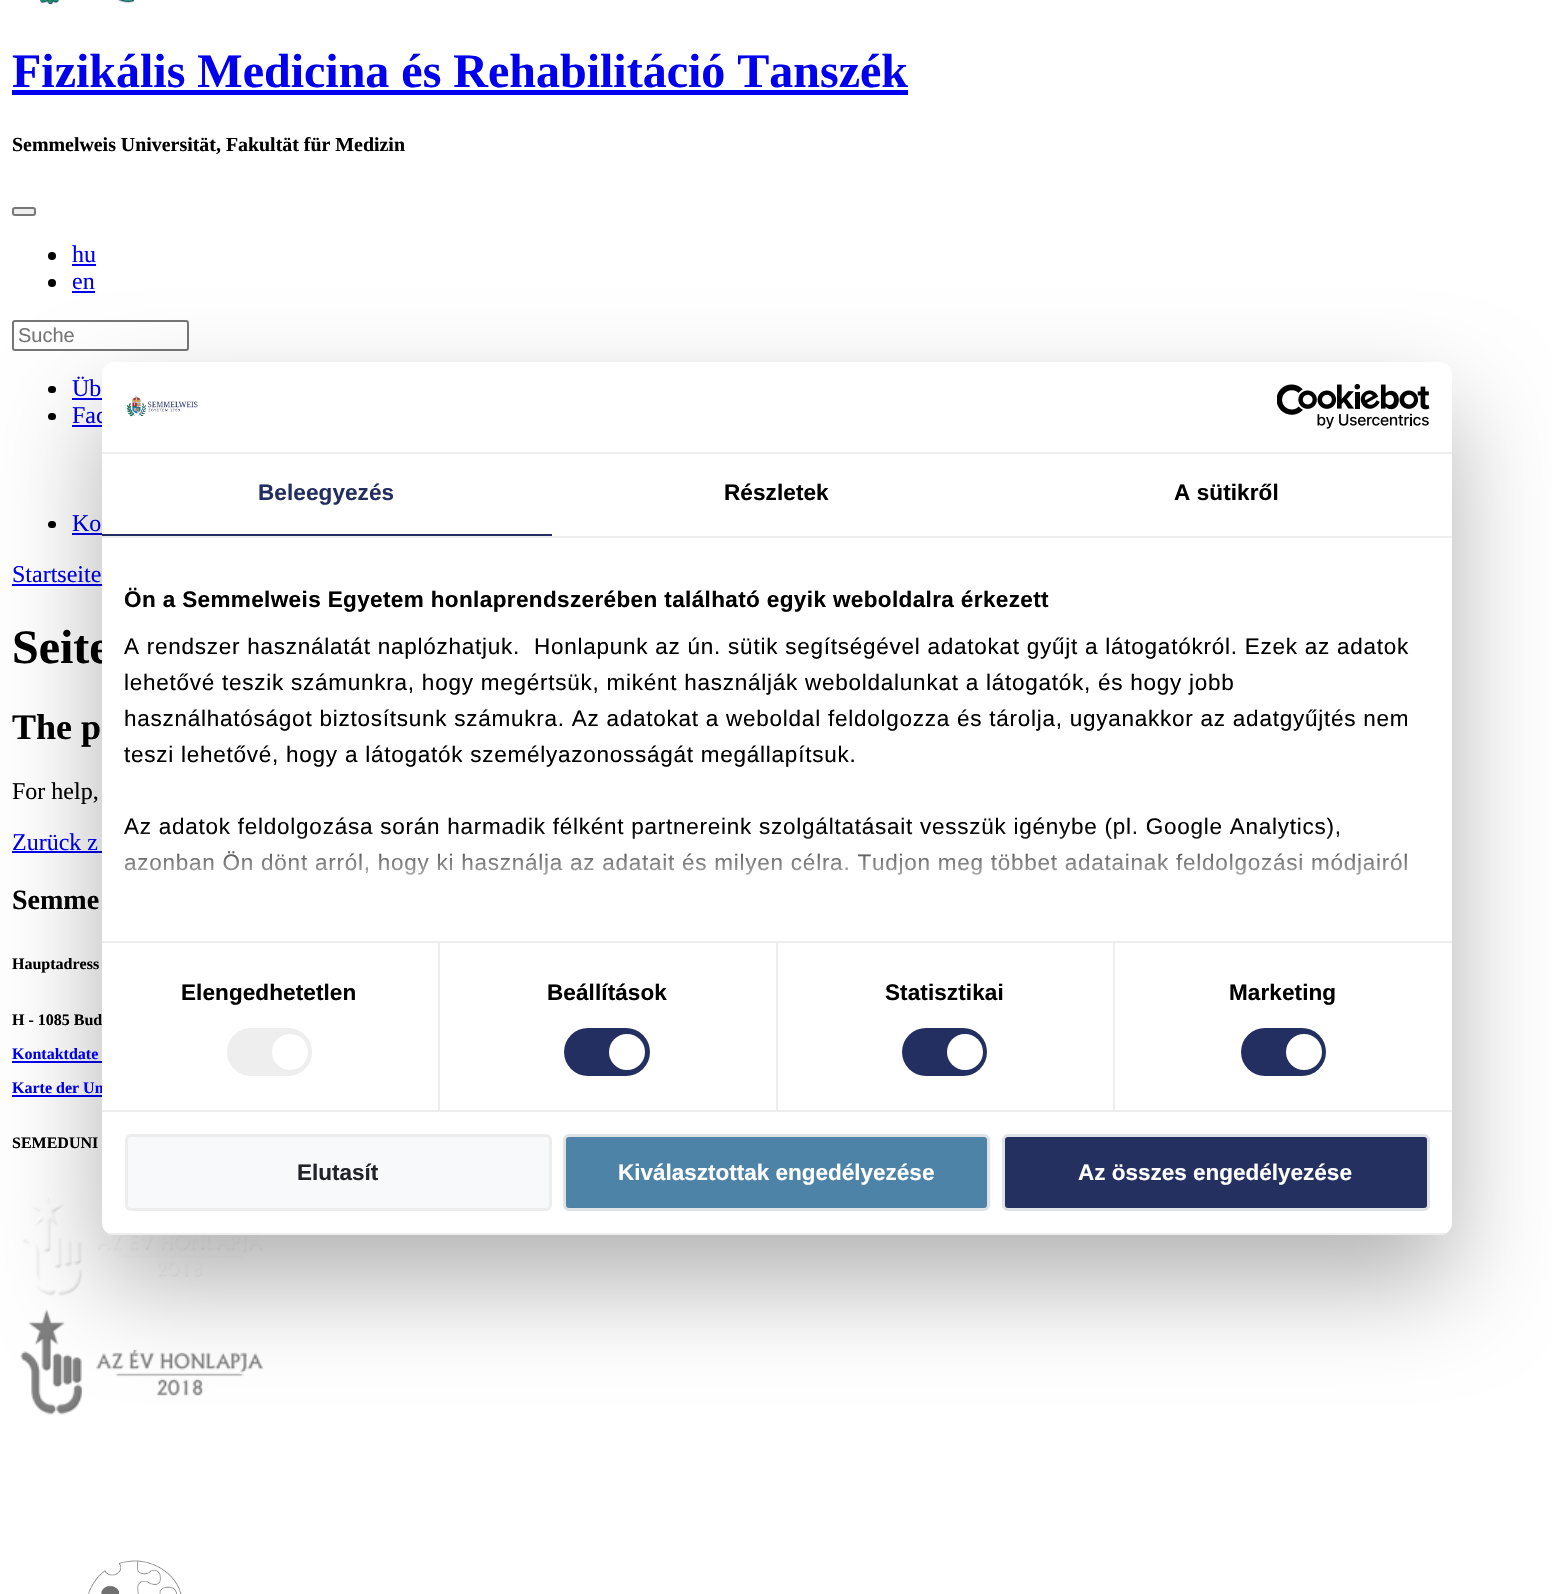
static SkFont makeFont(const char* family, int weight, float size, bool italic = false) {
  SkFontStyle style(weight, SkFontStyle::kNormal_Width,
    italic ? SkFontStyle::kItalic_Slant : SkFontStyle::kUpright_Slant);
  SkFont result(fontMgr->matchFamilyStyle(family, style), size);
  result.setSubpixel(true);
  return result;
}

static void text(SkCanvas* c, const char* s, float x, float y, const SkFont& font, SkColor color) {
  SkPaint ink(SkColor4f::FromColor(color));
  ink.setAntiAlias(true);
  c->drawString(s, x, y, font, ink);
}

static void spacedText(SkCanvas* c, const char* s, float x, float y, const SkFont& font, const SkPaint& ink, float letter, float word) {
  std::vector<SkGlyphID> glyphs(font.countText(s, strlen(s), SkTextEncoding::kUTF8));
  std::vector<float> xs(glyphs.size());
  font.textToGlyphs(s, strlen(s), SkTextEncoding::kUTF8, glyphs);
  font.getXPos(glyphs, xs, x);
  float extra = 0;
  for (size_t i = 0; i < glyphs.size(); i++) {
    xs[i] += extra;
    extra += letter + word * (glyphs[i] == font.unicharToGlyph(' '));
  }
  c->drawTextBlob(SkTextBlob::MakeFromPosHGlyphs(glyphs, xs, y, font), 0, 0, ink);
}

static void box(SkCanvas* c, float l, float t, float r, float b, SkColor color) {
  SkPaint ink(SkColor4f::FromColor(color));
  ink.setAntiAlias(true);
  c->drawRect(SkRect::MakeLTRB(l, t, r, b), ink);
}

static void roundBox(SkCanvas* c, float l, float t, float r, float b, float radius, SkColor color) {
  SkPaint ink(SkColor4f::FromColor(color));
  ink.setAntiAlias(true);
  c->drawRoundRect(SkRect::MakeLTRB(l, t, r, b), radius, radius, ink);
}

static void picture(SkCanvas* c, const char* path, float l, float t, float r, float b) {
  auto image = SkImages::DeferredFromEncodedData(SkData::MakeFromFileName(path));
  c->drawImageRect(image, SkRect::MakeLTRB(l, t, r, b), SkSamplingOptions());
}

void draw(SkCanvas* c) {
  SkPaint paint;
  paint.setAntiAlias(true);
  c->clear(0xffffffff);
  picture(c, "img_01.png", 40, 0, 135, 5);
  SkFont face1 = makeFont("Liberation Serif", 700, 48);
  text(c, "Fizikális Medicina és Rehabilitáció Tanszék", 12, 87, face1, 0xff0000ee);
  box(c, 12, 90, 908, 95, 0xff0000ee);
  SkFont face2 = makeFont("Liberation Serif", 700, 19.9f);
  text(c, "Semmelweis Universität, Fakultät für Medizin", 12, 151, face2, 0xff000000);
  paint.setColor(0xffefefef);
  c->drawRoundRect(SkRect::MakeLTRB(13, 208, 35, 215), 2, 2, paint);
  paint.setStyle(SkPaint::kStroke_Style);
  paint.setStrokeWidth(2);
  paint.setColor(0xff767676);
  c->drawRoundRect(SkRect::MakeLTRB(13, 208, 35, 215), 2, 2, paint);
  paint.setStyle(SkPaint::kFill_Style);
  paint.setColor(0xff000000);
  c->drawCircle(52, 256, 4, paint);
  SkFont face3 = makeFont("Liberation Serif", 400, 24);
  text(c, "hu", 72, 262, face3, 0xff0000ee);
  box(c, 72, 264, 96, 266, 0xff0000ee);
  c->drawCircle(52, 283, 4, paint);
  text(c, "en", 72, 289, face3, 0xff0000ee);
  box(c, 72, 291, 95, 293, 0xff0000ee);
  paint.setStyle(SkPaint::kStroke_Style);
  paint.setColor(0xff767676);
  c->drawRoundRect(SkRect::MakeLTRB(13, 321, 188, 350), 2, 2, paint);
  SkFont face4 = makeFont("Liberation Sans", 400, 20);
  text(c, "Suche", 18, 342, face4, 0xff757575);
  roundBox(c, 48, 386, 56, 393, 3.5f, 0xff000000);
  text(c, "Üb", 72, 396, face3, 0xff0000ee);
  box(c, 72, 398, 102, 400, 0xff0000ee);
  roundBox(c, 48, 413, 56, 420, 3.5f, 0xff000000);
  text(c, "Fac", 72, 423, face3, 0xff0000ee);
  box(c, 72, 425, 102, 427, 0xff0000ee);
  roundBox(c, 48, 521, 56, 528, 3.5f, 0xff000000);
  text(c, "Ko", 72, 531, face3, 0xff0000ee);
  box(c, 72, 533, 102, 535, 0xff0000ee);
  text(c, "Startseite", 12, 582, face3, 0xff0000ee);
  box(c, 12, 584, 102, 586, 0xff0000ee);
  text(c, "Seite", 12, 663, face1, 0xff000000);
  SkFont face5 = makeFont("Liberation Serif", 700, 36);
  text(c, "The p", 12, 739, face5, 0xff000000);
  text(c, "For help,", 12, 799, face3, 0xff000000);
  box(c, 12, 851, 102, 853, 0xff0000ee);
  box(c, 12, 1061, 102, 1063, 0xff0000ee);
  box(c, 12, 1095, 102, 1097, 0xff0000ee);
  picture(c, "img_04.png", 23, 1197, 263, 1296);
  picture(c, "img_05.png", 20, 1309, 264, 1415);
  paint.setStyle(SkPaint::kFill_Style);
  paint.setColor(0x4d000000);
  paint.setMaskFilter(SkMaskFilter::MakeBlur(kNormal_SkBlurStyle, 51));
  c->drawRoundRect(SkRect::MakeLTRB(102, 410, 1452, 1283), 12, 12, paint);
  paint.setMaskFilter(nullptr);
  SkFont face6 = makeFont("Liberation Serif", 700, 16);
  text(c, "H - 1085 Bud", 12, 1025, face6, 0xff000000);
  text(c, "Karte der Un", 12, 1093, face6, 0xff0000ee);
  roundBox(c, 102, 362, 1452, 1235, 12, 0xffffffff);
  box(c, 102, 452, 1452, 454, 0xffeeeeee);
  picture(c, "img_02.png", 126, 395, 198, 417);
  picture(c, "img_03.png", 1277, 384, 1430, 429);
  box(c, 102, 536, 1452, 538, 0xffeeeeee);
  box(c, 102, 534, 552, 536, 0xff232f61);
  SkFont face7 = makeFont("Liberation Sans", 700, 22.5f);
  paint.setColor(0xff232f61);
  spacedText(c, "Beleegyezés", 258, 500, face7, paint, 0.1f, 0);
  paint.setColor(0xff000000);
  spacedText(c, "Részletek", 724, 500, face7, paint, 0.1f, 0);
  spacedText(c, "A sütikről", 1174, 500, face7, paint, 0.1f, 0);
  box(c, 438, 942, 440, 1110, 0xffeeeeee);
  box(c, 776, 942, 778, 1110, 0xffeeeeee);
  box(c, 1113, 942, 1115, 1110, 0xffeeeeee);
  box(c, 102, 941, 1452, 943, 0xffeeeeee);
  spacedText(c, "Ön a Semmelweis Egyetem honlaprendszerében található egyik weboldalra érkezett", 124, 607, face7, paint, 0.38f, 0);
  SkFont face8 = makeFont("Liberation Sans", 400, 22.5f);
  spacedText(c, "A rendszer használatát naplózhatjuk.", 124, 654, face8, paint, 0.75f, 0);
  spacedText(c, "Honlapunk az ún. sütik segítségével adatokat gyűjt a látogatókról. Ezek az adatok", 534, 654, face8, paint, 0.75f, 0);
  spacedText(c, "lehetővé teszik számunkra, hogy megértsük, miként használják weboldalunkat a látogatók, és hogy jobb", 124, 690, face8, paint, 0.75f, 0);
  spacedText(c, "használhatóságot biztosítsunk számukra. Az adatokat a weboldal feldolgozza és tárolja, ugyanakkor az adatgyűjtés nem", 124, 726, face8, paint, 0.75f, 0);
  spacedText(c, "teszi lehetővé, hogy a látogatók személyazonosságát megállapítsuk.", 124, 762, face8, paint, 0.75f, 0);
  spacedText(c, "Az adatok feldolgozása során harmadik félként partnereink szolgáltatásait vesszük igénybe (pl. Google Analytics),", 124, 834, face8, paint, 0.75f, 0);
  spacedText(c, "azonban Ön dönt arról, hogy ki használja az adatait és milyen célra. Tudjon meg többet adatainak feldolgozási módjairól", 124, 870, face8, paint, 0.75f, 0);
  {
    const SkColor colors[] = {0xffffffff, 0xccffffff, 0x00ffffff};
    const float stops[] = {0, 0.5f, 1};
    const SkPoint ends[] = {{767, 940}, {767, 828}};
    paint.setShader(SkGradientShader::MakeLinear(ends, colors, stops, 3, SkTileMode::kClamp));
    paint.setAlpha(255);
  }
  c->drawRect(SkRect::MakeLTRB(124, 830, 1407, 875), paint);
  box(c, 102, 1110, 1452, 1112, 0xffeeeeee);
  paint.setShader(nullptr);
  paint.setColor(0xff000000);
  spacedText(c, "Elengedhetetlen", 181, 1000, face7, paint, 0.1f, 0);
  roundBox(c, 227, 1028, 312, 1076, 24, 0xffeeeeee);
  paint.setColor(0xffffffff);
  c->drawCircle(290, 1052, 18, paint);
  paint.setColor(0xff000000);
  spacedText(c, "Beállítások", 547, 1000, face7, paint, 0.1f, 0);
  roundBox(c, 564, 1028, 650, 1076, 24, 0xff232f61);
  paint.setColor(0xffffffff);
  c->drawCircle(627, 1052, 18, paint);
  paint.setColor(0xff000000);
  spacedText(c, "Statisztikai", 885, 1000, face7, paint, 0.1f, 0);
  roundBox(c, 902, 1028, 987, 1076, 24, 0xff232f61);
  paint.setColor(0xffffffff);
  c->drawCircle(965, 1052, 18, paint);
  paint.setColor(0xff000000);
  spacedText(c, "Marketing", 1229, 1000, face7, paint, 0.1f, 0);
  roundBox(c, 1241, 1028, 1326, 1076, 24, 0xff232f61);
  paint.setColor(0xffffffff);
  c->drawCircle(1304, 1052, 18, paint);
  c->save();
  c->clipPath(SkPathBuilder().moveTo(114, 362).lineTo(1440, 362).cubicTo(1446.5f, 362, 1452, 367.5f, 1452, 374).lineTo(1452, 1223).cubicTo(1452, 1229.5f, 1446.5f, 1235, 1440, 1235).lineTo(114, 1235).cubicTo(107.5f, 1235, 102, 1229.5f, 102, 1223).lineTo(102, 374).cubicTo(102, 367.5f, 107.5f, 362, 114, 362).close().detach(), true);
  box(c, 102, 1233, 1452, 1235, 0xffeeeeee);
  c->restore();
  paint.setColor(0xfff8f9fa);
  c->drawRoundRect(SkRect::MakeLTRB(126.5f, 1135.5f, 550.5f, 1209.5f), 4.5f, 4.5f, paint);
  paint.setStyle(SkPaint::kStroke_Style);
  paint.setStrokeWidth(3);
  paint.setColor(0xffededed);
  c->drawRoundRect(SkRect::MakeLTRB(126.5f, 1135.5f, 550.5f, 1209.5f), 4.5f, 4.5f, paint);
  text(c, "Elutasít", 297, 1180, face7, 0xff212529);
  paint.setStyle(SkPaint::kFill_Style);
  paint.setColor(0xff4e83a8);
  c->drawRoundRect(SkRect::MakeLTRB(564.5f, 1135.5f, 988.5f, 1209.5f), 4.5f, 4.5f, paint);
  paint.setStyle(SkPaint::kStroke_Style);
  paint.setColor(0xffdfe3e6);
  c->drawRoundRect(SkRect::MakeLTRB(564.5f, 1135.5f, 988.5f, 1209.5f), 4.5f, 4.5f, paint);
  text(c, "Kiválasztottak engedélyezése", 618, 1180, face7, 0xffffffff);
  paint.setStyle(SkPaint::kFill_Style);
  paint.setColor(0xff243060);
  c->drawRoundRect(SkRect::MakeLTRB(1003.5f, 1135.5f, 1428.5f, 1209.5f), 4.5f, 4.5f, paint);
  paint.setStyle(SkPaint::kStroke_Style);
  paint.setColor(0xffdfe3e6);
  c->drawRoundRect(SkRect::MakeLTRB(1003.5f, 1135.5f, 1428.5f, 1209.5f), 4.5f, 4.5f, paint);
  text(c, "Az összes engedélyezése", 1078, 1180, face7, 0xffffffff);
  text(c, "Zurück z", 12, 850, face3, 0xff0000ee);
  SkFont face9 = makeFont("Liberation Serif", 700, 28);
  text(c, "Semme", 12, 909, face9, 0xff000000);
  text(c, "Hauptadress", 12, 969, face6, 0xff000000);
  text(c, "Kontaktdate", 12, 1059, face6, 0xff0000ee);
  text(c, "SEMEDUNI", 12, 1148, face6, 0xff000000);
  picture(c, "img_06.png", 88, 1560, 182, 1594);
}
